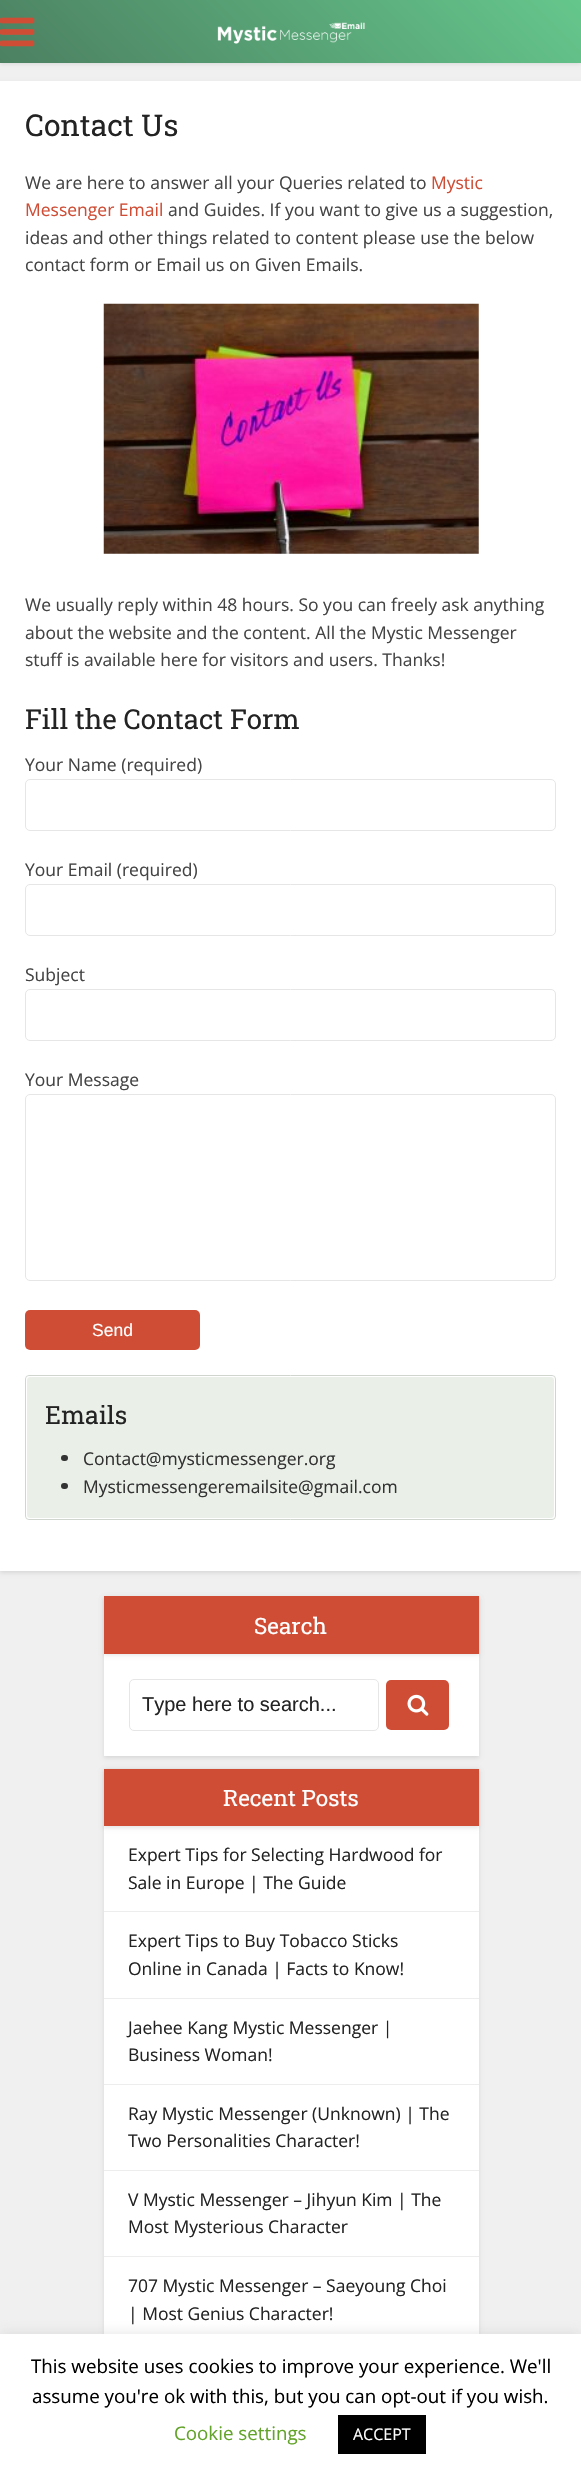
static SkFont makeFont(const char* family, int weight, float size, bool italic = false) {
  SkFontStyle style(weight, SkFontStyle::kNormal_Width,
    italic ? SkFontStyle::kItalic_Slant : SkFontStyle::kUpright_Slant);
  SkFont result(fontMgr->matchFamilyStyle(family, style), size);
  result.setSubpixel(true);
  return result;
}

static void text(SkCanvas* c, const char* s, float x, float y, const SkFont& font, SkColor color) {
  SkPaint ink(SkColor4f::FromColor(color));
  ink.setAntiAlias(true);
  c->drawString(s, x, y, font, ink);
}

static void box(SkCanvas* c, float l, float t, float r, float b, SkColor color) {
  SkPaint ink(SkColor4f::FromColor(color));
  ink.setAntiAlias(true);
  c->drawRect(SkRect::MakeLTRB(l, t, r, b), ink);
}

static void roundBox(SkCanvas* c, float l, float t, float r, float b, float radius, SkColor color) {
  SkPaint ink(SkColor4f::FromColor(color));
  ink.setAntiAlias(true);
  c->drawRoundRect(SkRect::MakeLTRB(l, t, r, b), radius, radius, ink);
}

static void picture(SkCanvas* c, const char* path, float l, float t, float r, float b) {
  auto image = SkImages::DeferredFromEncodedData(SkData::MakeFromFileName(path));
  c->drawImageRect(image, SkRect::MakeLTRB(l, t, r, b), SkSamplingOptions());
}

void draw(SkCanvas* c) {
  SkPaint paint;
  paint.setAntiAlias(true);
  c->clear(0xfff0f0f0);
  paint.setColor(0x1a000000);
  paint.setMaskFilter(SkMaskFilter::MakeBlur(kNormal_SkBlurStyle, 2));
  c->drawRect(SkRect::MakeLTRB(0, 1, 581, 64), paint);
  paint.setMaskFilter(nullptr);
  {
    const SkColor colors[] = {0xff65c78c, 0xff4c8061};
    const float stops[] = {0, 1};
    const SkPoint ends[] = {{452, -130}, {130, 192}};
    paint.setShader(SkGradientShader::MakeLinear(ends, colors, stops, 2, SkTileMode::kClamp));
    paint.setAlpha(255);
  }
  c->drawRect(SkRect::MakeLTRB(0, 0, 581, 63), paint);
  picture(c, "img_01.png", 0, 17, 35, 47);
  picture(c, "img_02.png", 217, 22, 365, 44);
  paint.setShader(nullptr);
  paint.setColor(0x1a000000);
  paint.setMaskFilter(SkMaskFilter::MakeBlur(kNormal_SkBlurStyle, 2));
  c->drawRect(SkRect::MakeLTRB(0, 83, 581, 1573), paint);
  paint.setMaskFilter(nullptr);
  box(c, 0, 81, 581, 1571, 0xffffffff);
  SkFont face1 = makeFont("Roboto Slab", 400, 30);
  text(c, "Contact Us", 25, 136, face1, 0xff232323);
  SkFont face2 = makeFont("Open Sans", 400, 17.5f);
  text(c, "We are here to answer all your Queries related to", 25, 189, face2, 0xff444444);
  text(c, "Mystic", 431, 189, face2, 0xffcf4d35);
  text(c, "Messenger Email", 25, 216, face2, 0xffcf4d35);
  text(c, "and Guides. If you want to give us a suggestion,", 168, 216, face2, 0xff444444);
  text(c, "ideas and other things related to content please use the below", 25, 244, face2, 0xff444444);
  text(c, "contact form or Email us on Given Emails.", 25, 271, face2, 0xff444444);
  picture(c, "img_03.png", 103, 303, 479, 554);
  text(c, "We usually reply within 48 hours. So you can freely ask anything", 25, 611, face2, 0xff444444);
  text(c, "about the website and the content. All the Mystic Messenger", 25, 639, face2, 0xff444444);
  text(c, "stuff is available here for visitors and users. Thanks!", 25, 666, face2, 0xff444444);
  SkFont face3 = makeFont("Roboto Slab", 400, 27.5f);
  text(c, "Fill the Contact Form", 25, 729, face3, 0xff232323);
  text(c, "Your Name (required)", 25, 771, face2, 0xff444444);
  paint.setStyle(SkPaint::kStroke_Style);
  paint.setStrokeWidth(1);
  paint.setColor(0xffe6e6e6);
  c->drawRoundRect(SkRect::MakeLTRB(25.5f, 779.5f, 555.5f, 830.5f), 4.5f, 4.5f, paint);
  text(c, "Your Email (required)", 25, 876, face2, 0xff444444);
  c->drawRoundRect(SkRect::MakeLTRB(25.5f, 884.5f, 555.5f, 935.5f), 4.5f, 4.5f, paint);
  text(c, "Subject", 25, 981, face2, 0xff444444);
  c->drawRoundRect(SkRect::MakeLTRB(25.5f, 989.5f, 555.5f, 1040.5f), 4.5f, 4.5f, paint);
  text(c, "Your Message", 25, 1086, face2, 0xff444444);
  c->drawRoundRect(SkRect::MakeLTRB(25.5f, 1094.5f, 555.5f, 1280.5f), 4.5f, 4.5f, paint);
  roundBox(c, 25, 1310, 200, 1350, 5, 0xffcf4d35);
  SkFont face4 = makeFont("Liberation Sans", 400, 17.5f);
  text(c, "Send", 92, 1336, face4, 0xffffffff);
  paint.setColor(0xffd0d6ce);
  c->drawRoundRect(SkRect::MakeLTRB(25.5f, 1375.5f, 555.5f, 1519.5f), 3.5f, 3.5f, paint);
  paint.setStyle(SkPaint::kFill_Style);
  paint.setColor(0xffeaf0e8);
  c->drawRoundRect(SkRect::MakeLTRB(26.5f, 1376.5f, 554.5f, 1518.5f), 3.5f, 3.5f, paint);
  paint.setStyle(SkPaint::kStroke_Style);
  paint.setColor(0xffffffff);
  c->drawRoundRect(SkRect::MakeLTRB(26.5f, 1376.5f, 554.5f, 1518.5f), 3.5f, 3.5f, paint);
  SkFont face5 = makeFont("Roboto Slab", 400, 25);
  text(c, "Emails", 45, 1424, face5, 0xff232323);
  roundBox(c, 61, 1455, 68, 1461, 3, 0xff333333);
  text(c, "Contact@mysticmessenger.org", 83, 1465, face2, 0xff333333);
  roundBox(c, 61, 1483, 68, 1489, 3, 0xff333333);
  text(c, "Mysticmessengeremailsite@gmail.com", 83, 1493, face2, 0xff333333);
  paint.setStyle(SkPaint::kFill_Style);
  paint.setColor(0x1a000000);
  paint.setMaskFilter(SkMaskFilter::MakeBlur(kNormal_SkBlurStyle, 2));
  c->drawRect(SkRect::MakeLTRB(104, 1598, 479, 1758), paint);
  paint.setMaskFilter(nullptr);
  box(c, 104, 1654, 479, 1756, 0xffffffff);
  paint.setMaskFilter(SkMaskFilter::MakeBlur(kNormal_SkBlurStyle, 2));
  c->drawRect(SkRect::MakeLTRB(104, 1598, 479, 1655), paint);
  paint.setMaskFilter(nullptr);
  box(c, 104, 1596, 479, 1654, 0xffcf4d35);
  SkFont face6 = makeFont("Roboto Slab", 400, 22.5f);
  text(c, "Search", 254, 1634, face6, 0xffffffff);
  paint.setStyle(SkPaint::kStroke_Style);
  paint.setColor(0xffe6e6e6);
  c->drawRoundRect(SkRect::MakeLTRB(129.5f, 1679.5f, 378.5f, 1730.5f), 4.5f, 4.5f, paint);
  SkFont face7 = makeFont("Liberation Sans", 400, 20);
  text(c, "Type here to search...", 142, 1711, face7, 0xff232323);
  roundBox(c, 386, 1680, 449, 1730, 5, 0xffcf4d35);
  picture(c, "img_04.png", 407, 1694, 429, 1716);
  paint.setStyle(SkPaint::kFill_Style);
  paint.setColor(0x1a000000);
  paint.setMaskFilter(SkMaskFilter::MakeBlur(kNormal_SkBlurStyle, 2));
  c->drawRect(SkRect::MakeLTRB(104, 1770, 479, 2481), paint);
  paint.setMaskFilter(nullptr);
  box(c, 104, 1826, 479, 2334, 0xffffffff);
  paint.setMaskFilter(SkMaskFilter::MakeBlur(kNormal_SkBlurStyle, 2));
  c->drawRect(SkRect::MakeLTRB(104, 1770, 479, 1828), paint);
  paint.setMaskFilter(nullptr);
  box(c, 104, 1769, 479, 1826, 0xffcf4d35);
  text(c, "Recent Posts", 223, 1806, face6, 0xffffffff);
  box(c, 104, 1911, 479, 1912, 0xffededed);
  text(c, "Expert Tips for Selecting Hardwood for", 128, 1861, face2, 0xff232323);
  text(c, "Sale in Europe | The Guide", 128, 1889, face2, 0xff232323);
  box(c, 104, 1998, 479, 1999, 0xffededed);
  text(c, "Expert Tips to Buy Tobacco Sticks", 128, 1947, face2, 0xff232323);
  text(c, "Online in Canada | Facts to Know!", 128, 1975, face2, 0xff232323);
  box(c, 104, 2084, 479, 2085, 0xffededed);
  text(c, "Jaehee Kang Mystic Messenger |", 128, 2034, face2, 0xff232323);
  text(c, "Business Woman!", 128, 2061, face2, 0xff232323);
  box(c, 104, 2170, 479, 2171, 0xffededed);
  text(c, "Ray Mystic Messenger (Unknown) | The", 128, 2120, face2, 0xff232323);
  text(c, "Two Personalities Character!", 128, 2147, face2, 0xff232323);
  box(c, 104, 2256, 479, 2257, 0xffededed);
  text(c, "V Mystic Messenger – Jihyun Kim | The", 128, 2206, face2, 0xff232323);
  text(c, "Most Mysterious Character", 128, 2233, face2, 0xff232323);
  text(c, "707 Mystic Messenger – Saeyoung Choi", 128, 2292, face2, 0xff232323);
  text(c, "| Most Genius Character!", 128, 2320, face2, 0xff232323);
  paint.setColor(0x4dacabab);
  paint.setMaskFilter(SkMaskFilter::MakeBlur(kNormal_SkBlurStyle, 6));
  c->drawRect(SkRect::MakeLTRB(0, 2333, 581, 2474), paint);
  paint.setMaskFilter(nullptr);
  box(c, 0, 2334, 581, 2475, 0xffffffff);
  SkFont face8 = makeFont("Open Sans", 400, 18.75f);
  text(c, "This website uses cookies to improve your experience. We'll", 31, 2373, face8, 0xff000000);
  text(c, "assume you're ok with this, but you can opt-out if you wish.", 32, 2403, face8, 0xff000000);
  text(c, "Cookie settings", 174, 2440, face8, 0xff62a329);
  box(c, 338, 2415, 426, 2454, 0xff000000);
  SkFont face9 = makeFont("Open Sans", 400, 16);
  text(c, "ACCEPT", 353, 2440, face9, 0xffffffff);
}
